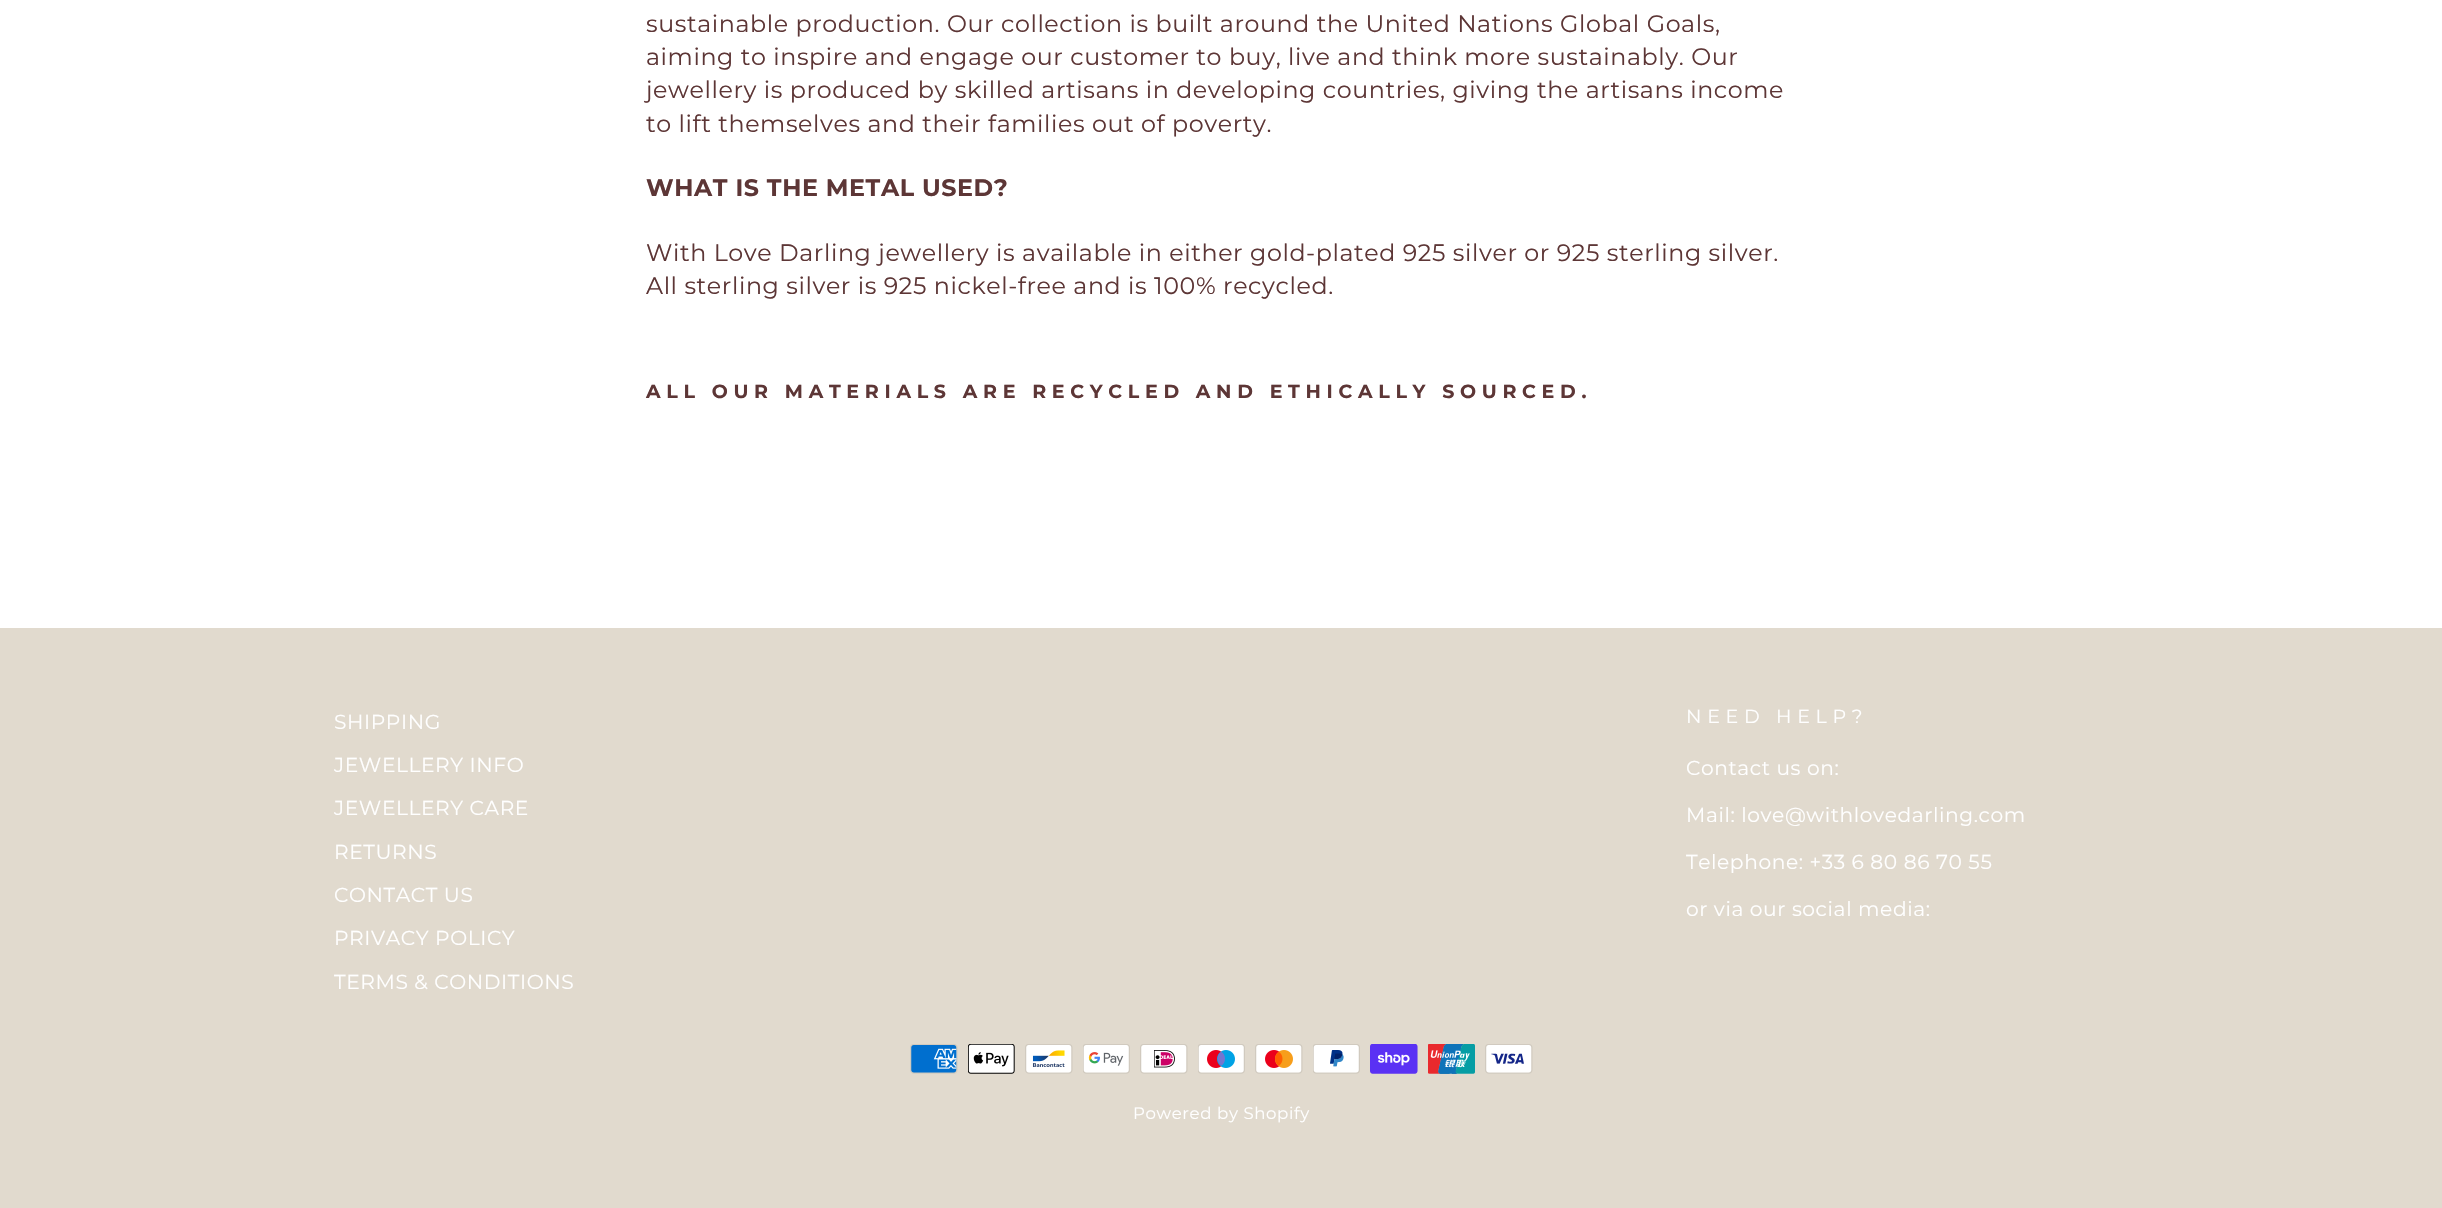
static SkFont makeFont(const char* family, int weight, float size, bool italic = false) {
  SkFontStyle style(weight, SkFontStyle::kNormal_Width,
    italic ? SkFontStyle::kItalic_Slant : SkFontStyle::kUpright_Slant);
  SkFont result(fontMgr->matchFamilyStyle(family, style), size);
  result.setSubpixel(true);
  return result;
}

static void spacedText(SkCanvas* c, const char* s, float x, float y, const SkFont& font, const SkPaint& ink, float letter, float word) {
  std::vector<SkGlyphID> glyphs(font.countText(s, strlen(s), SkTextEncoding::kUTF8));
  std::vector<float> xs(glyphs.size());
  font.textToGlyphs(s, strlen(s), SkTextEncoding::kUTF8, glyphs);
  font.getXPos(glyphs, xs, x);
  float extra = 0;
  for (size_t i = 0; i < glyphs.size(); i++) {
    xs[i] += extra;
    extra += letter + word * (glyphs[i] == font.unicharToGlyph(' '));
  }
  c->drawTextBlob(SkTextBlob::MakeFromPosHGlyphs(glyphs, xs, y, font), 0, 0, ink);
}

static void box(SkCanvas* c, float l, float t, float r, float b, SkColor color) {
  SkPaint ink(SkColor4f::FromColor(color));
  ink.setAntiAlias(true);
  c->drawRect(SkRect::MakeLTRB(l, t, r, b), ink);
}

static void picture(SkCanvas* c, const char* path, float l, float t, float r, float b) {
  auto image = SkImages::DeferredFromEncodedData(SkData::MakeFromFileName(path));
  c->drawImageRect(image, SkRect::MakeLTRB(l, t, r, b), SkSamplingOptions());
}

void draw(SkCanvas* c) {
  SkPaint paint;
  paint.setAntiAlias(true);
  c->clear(0xffffffff);
  SkFont face1 = makeFont("Montserrat", 400, 23.75f);
  paint.setColor(0xff5d3636);
  spacedText(c, "sustainable production. Our collection is built around the United Nations Global Goals,", 646, 32, face1, paint, 0.6f, 0);
  spacedText(c, "aiming to inspire and engage our customer to buy, live and think more sustainably. Our", 646, 65, face1, paint, 0.6f, 0);
  spacedText(c, "jewellery is produced by skilled artisans in developing countries, giving the artisans income", 646, 98, face1, paint, 0.6f, 0);
  spacedText(c, "to lift themselves and their families out of poverty.", 646, 132, face1, paint, 0.6f, 0);
  SkFont face2 = makeFont("Montserrat", 700, 23.75f);
  spacedText(c, "WHAT IS THE METAL USED?", 646, 196, face2, paint, 0.6f, 0);
  spacedText(c, "With Love Darling jewellery is available in either gold-plated 925 silver or 925 sterling silver.", 646, 261, face1, paint, 0.6f, 0);
  spacedText(c, "All sterling silver is 925 nickel-free and is 100% recycled.", 646, 294, face1, paint, 0.6f, 0);
  SkFont face3 = makeFont("Montserrat", 700, 19);
  spacedText(c, "ALL OUR MATERIALS ARE RECYCLED AND ETHICALLY SOURCED.", 646, 398, face3, paint, 5.7f, 0);
  box(c, 0, 628, 2442, 1208, 0xffe1dace);
  SkFont face4 = makeFont("Montserrat", 400, 20.2f);
  paint.setColor(0xffffffff);
  spacedText(c, "SHIPPING", 334, 729, face4, paint, 0.6f, 0);
  spacedText(c, "JEWELLERY INFO", 334, 772, face4, paint, 0.6f, 0);
  spacedText(c, "JEWELLERY CARE", 334, 815, face4, paint, 0.6f, 0);
  spacedText(c, "RETURNS", 334, 859, face4, paint, 0.6f, 0);
  spacedText(c, "CONTACT US", 334, 902, face4, paint, 0.6f, 0);
  spacedText(c, "PRIVACY POLICY", 334, 945, face4, paint, 0.6f, 0);
  spacedText(c, "TERMS & CONDITIONS", 334, 989, face4, paint, 0.6f, 0);
  SkFont face5 = makeFont("Montserrat", 400, 19);
  spacedText(c, "NEED HELP?", 1686, 723, face5, paint, 5.7f, 0);
  spacedText(c, "Contact us on:", 1686, 775, face4, paint, 0.6f, 0);
  spacedText(c, "Mail: love@withlovedarling.com", 1686, 822, face4, paint, 0.6f, 0);
  spacedText(c, "Telephone: +33 6 80 86 70 55", 1686, 869, face4, paint, 0.6f, 0);
  spacedText(c, "or via our social media:", 1686, 916, face4, paint, 0.6f, 0);
  picture(c, "img_01.png", 910, 1044, 958, 1074);
  picture(c, "img_02.png", 968, 1044, 1015, 1074);
  picture(c, "img_03.png", 1025, 1044, 1073, 1074);
  picture(c, "img_04.png", 1083, 1044, 1130, 1074);
  picture(c, "img_05.png", 1140, 1044, 1188, 1074);
  picture(c, "img_06.png", 1198, 1044, 1245, 1074);
  picture(c, "img_07.png", 1255, 1044, 1303, 1074);
  picture(c, "img_08.png", 1313, 1044, 1360, 1074);
  picture(c, "img_09.png", 1370, 1044, 1418, 1074);
  picture(c, "img_10.png", 1428, 1044, 1475, 1074);
  picture(c, "img_11.png", 1485, 1044, 1533, 1074);
  SkFont face6 = makeFont("Montserrat", 400, 16.6f);
  spacedText(c, "Powered by Shopify", 1133, 1119, face6, paint, 0.6f, 0);
}
